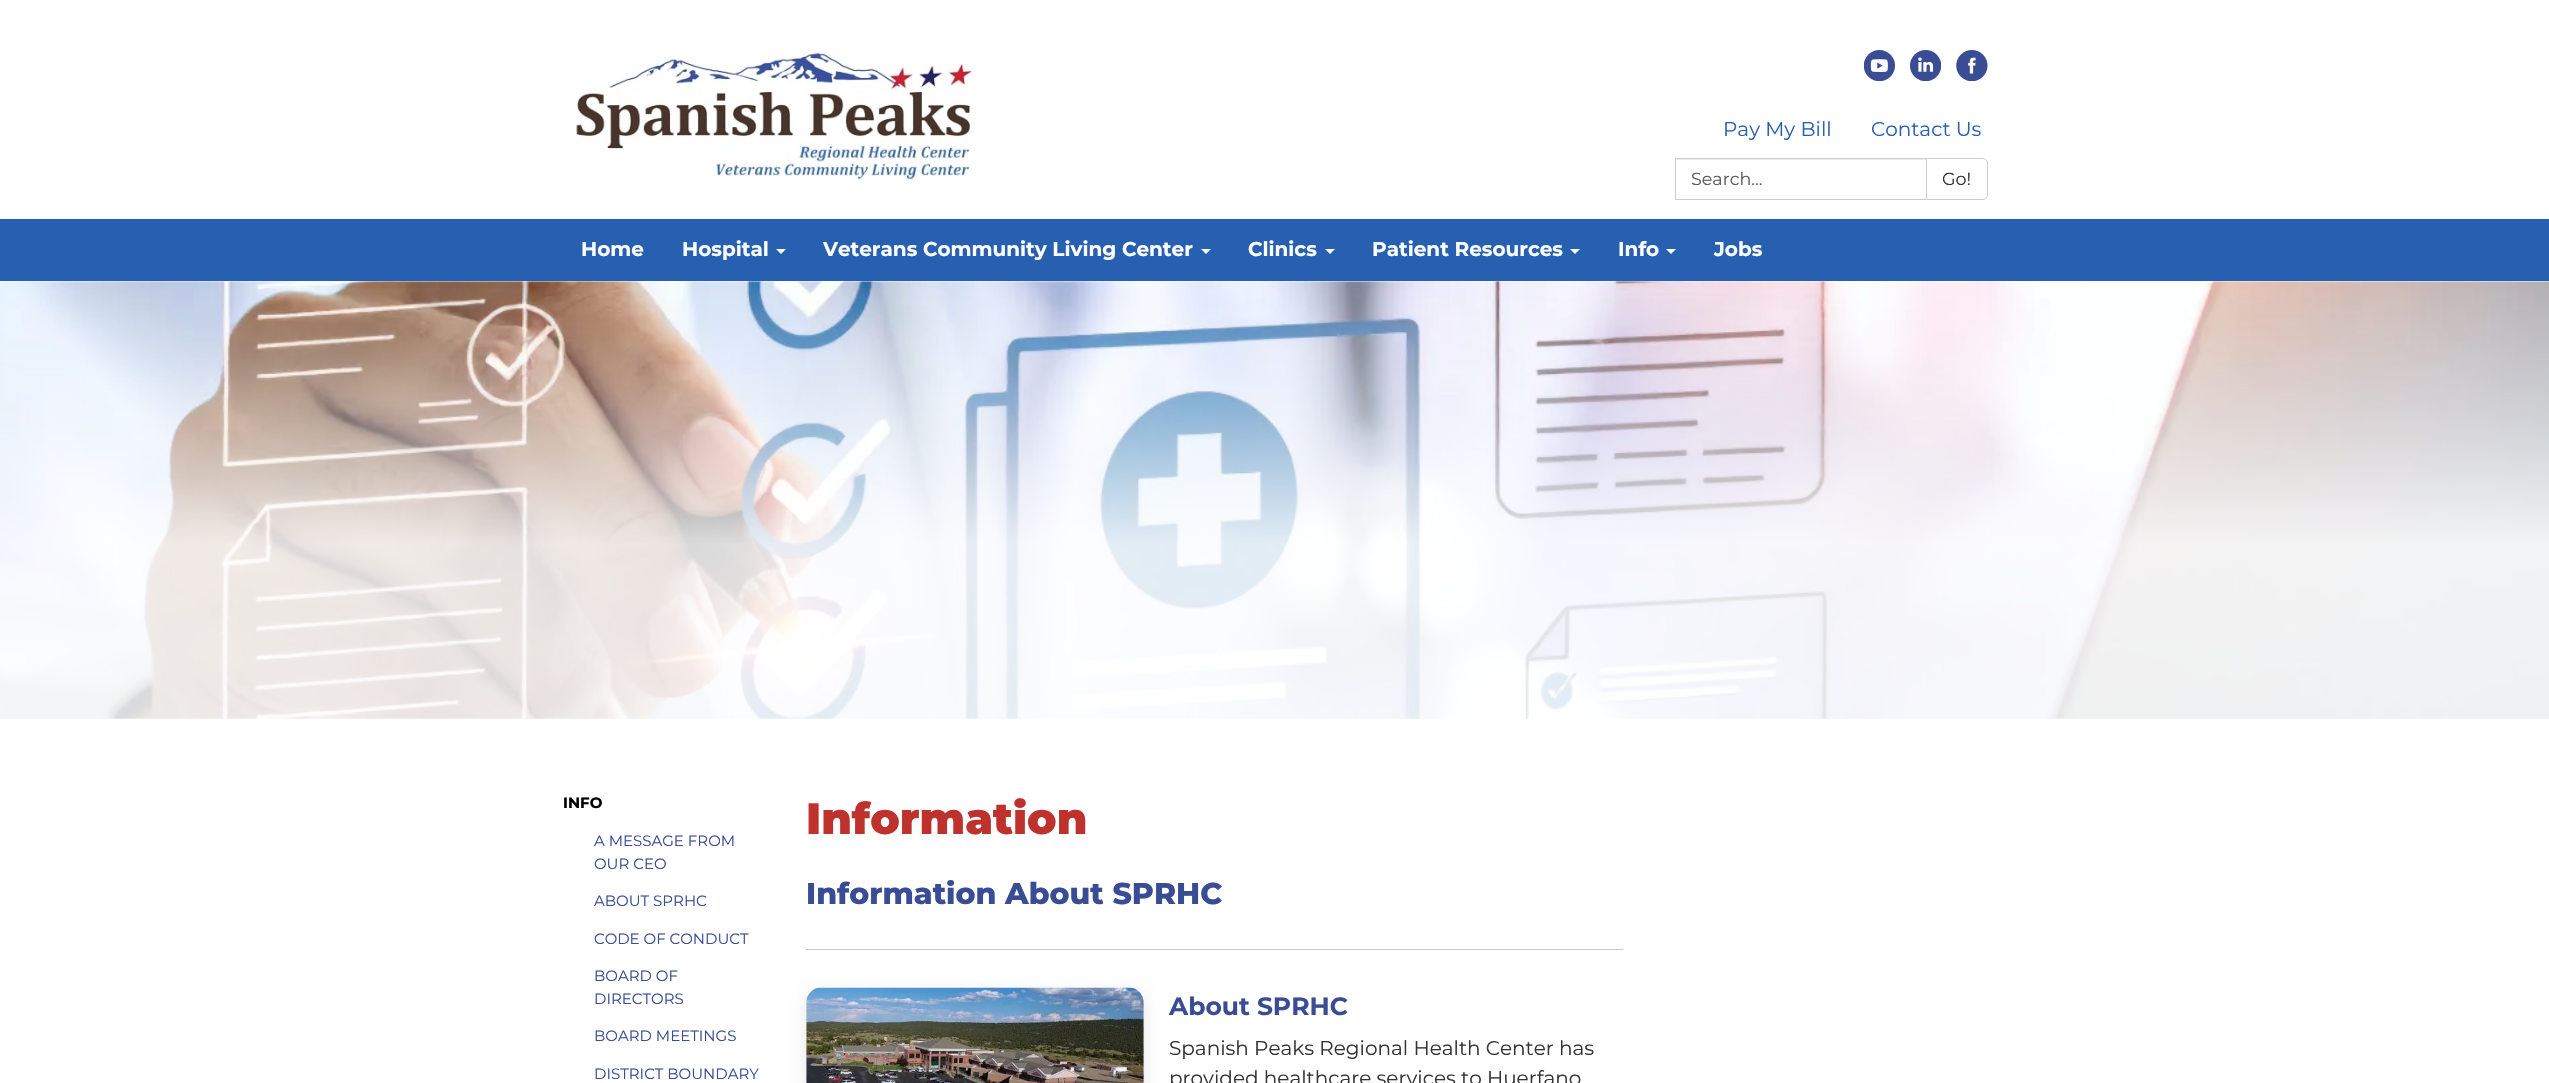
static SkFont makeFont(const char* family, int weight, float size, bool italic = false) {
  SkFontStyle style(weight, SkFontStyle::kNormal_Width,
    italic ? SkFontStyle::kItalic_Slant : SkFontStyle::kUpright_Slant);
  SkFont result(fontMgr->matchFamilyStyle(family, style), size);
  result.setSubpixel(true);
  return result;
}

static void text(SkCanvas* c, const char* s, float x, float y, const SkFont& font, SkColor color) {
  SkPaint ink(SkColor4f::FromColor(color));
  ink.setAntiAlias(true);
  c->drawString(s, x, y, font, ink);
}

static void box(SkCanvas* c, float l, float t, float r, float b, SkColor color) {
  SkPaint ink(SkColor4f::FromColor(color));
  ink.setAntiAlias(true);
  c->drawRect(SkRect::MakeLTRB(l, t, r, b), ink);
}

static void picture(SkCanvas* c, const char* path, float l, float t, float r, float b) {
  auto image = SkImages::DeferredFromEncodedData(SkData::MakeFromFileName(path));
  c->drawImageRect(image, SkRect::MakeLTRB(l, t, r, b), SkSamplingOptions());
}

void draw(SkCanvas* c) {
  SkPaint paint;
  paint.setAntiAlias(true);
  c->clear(0xffffffff);
  picture(c, "img_01.png", 576, 50, 974, 181);
  picture(c, "img_02.png", 1864, 50, 1895, 81);
  picture(c, "img_03.png", 1910, 50, 1941, 81);
  picture(c, "img_04.png", 1956, 50, 1988, 81);
  SkFont face1 = makeFont("Montserrat", 400, 20);
  text(c, "Pay My Bill", 1723, 136, face1, 0xff2760b0);
  text(c, "Contact Us", 1871, 136, face1, 0xff2760b0);
  box(c, 1676, 159, 1926, 160, 0xffececec);
  paint.setStyle(SkPaint::kStroke_Style);
  paint.setStrokeWidth(1);
  paint.setColor(0xffcccccc);
  c->drawRect(SkRect::MakeLTRB(1675.5f, 158.5f, 1927.5f, 199.5f), paint);
  SkFont face2 = makeFont("Montserrat", 400, 17.5f);
  text(c, "Search...", 1691, 185, face2, 0xff5b5b5b);
  paint.setStyle(SkPaint::kFill_Style);
  paint.setColor(0xffffffff);
  c->drawPath(SkPathBuilder().moveTo(1926.5f, 158.5f).lineTo(1983, 158.5f).cubicTo(1985.5f, 158.5f, 1987.5f, 160.5f, 1987.5f, 163).lineTo(1987.5f, 195).cubicTo(1987.5f, 197.5f, 1985.5f, 199.5f, 1983, 199.5f).lineTo(1926.5f, 199.5f).close().detach(), paint);
  paint.setStyle(SkPaint::kStroke_Style);
  paint.setColor(0xffcccccc);
  c->drawPath(SkPathBuilder().moveTo(1926.5f, 158.5f).lineTo(1983, 158.5f).cubicTo(1985.5f, 158.5f, 1987.5f, 160.5f, 1987.5f, 163).lineTo(1987.5f, 195).cubicTo(1987.5f, 197.5f, 1985.5f, 199.5f, 1983, 199.5f).lineTo(1926.5f, 199.5f).close().detach(), paint);
  text(c, "Go!", 1942, 185, face2, 0xff333333);
  box(c, 0, 219, 2549, 281, 0xff2760b0);
  SkFont face3 = makeFont("Montserrat", 700, 20);
  text(c, "Home", 581, 256, face3, 0xffffffff);
  text(c, "Hospital", 682, 256, face3, 0xffffffff);
  paint.setStyle(SkPaint::kFill_Style);
  paint.setColor(0xffffffff);
  c->drawPath(SkPathBuilder().moveTo(776, 249).lineTo(786, 249).lineTo(781, 254).close().detach(), paint);
  text(c, "Veterans Community Living Center", 823, 256, face3, 0xffffffff);
  c->drawPath(SkPathBuilder().moveTo(1201, 249).lineTo(1211, 249).lineTo(1206, 254).close().detach(), paint);
  text(c, "Clinics", 1248, 256, face3, 0xffffffff);
  c->drawPath(SkPathBuilder().moveTo(1325, 249).lineTo(1335, 249).lineTo(1330, 254).close().detach(), paint);
  text(c, "Patient Resources", 1372, 256, face3, 0xffffffff);
  c->drawPath(SkPathBuilder().moveTo(1570, 249).lineTo(1580, 249).lineTo(1575, 254).close().detach(), paint);
  text(c, "Info", 1618, 256, face3, 0xffffffff);
  c->drawPath(SkPathBuilder().moveTo(1666, 249).lineTo(1676, 249).lineTo(1671, 254).close().detach(), paint);
  text(c, "Jobs", 1714, 256, face3, 0xffffffff);
  picture(c, "img_05.png", 0, 281, 2549, 719);
  {
    const SkColor colors[] = {0xd9ffffff, 0xd9ffffff, 0x00ffffff};
    const float stops[] = {0, 0.4f, 1};
    const SkPoint ends[] = {{1275, 719}, {1275, 281}};
    paint.setShader(SkGradientShader::MakeLinear(ends, colors, stops, 3, SkTileMode::kClamp));
    paint.setAlpha(255);
  }
  c->drawRect(SkRect::MakeLTRB(0, 288, 2549, 719), paint);
  SkFont face4 = makeFont("Montserrat", 700, 15);
  text(c, "INFO", 563, 808, face4, 0xff000000);
  SkFont face5 = makeFont("Montserrat", 400, 15);
  text(c, "A MESSAGE FROM", 594, 846, face5, 0xff394c94);
  text(c, "OUR CEO", 594, 869, face5, 0xff394c94);
  text(c, "ABOUT SPRHC", 594, 906, face5, 0xff394c94);
  text(c, "CODE OF CONDUCT", 594, 944, face5, 0xff394c94);
  text(c, "BOARD OF", 594, 981, face5, 0xff394c94);
  text(c, "DIRECTORS", 594, 1004, face5, 0xff394c94);
  text(c, "BOARD MEETINGS", 594, 1041, face5, 0xff394c94);
  text(c, "DISTRICT BOUNDARY", 594, 1079, face5, 0xff394c94);
  SkFont face6 = makeFont("Montserrat", 900, 43.75f);
  text(c, "Information", 806, 834, face6, 0xffbe312d);
  SkFont face7 = makeFont("Montserrat", 800, 30);
  text(c, "Information About SPRHC", 806, 904, face7, 0xff394c94);
  box(c, 806, 949, 1623, 950, 0xffc8c9cb);
  paint.setShader(nullptr);
  paint.setColor(0x1a000000);
  paint.setMaskFilter(SkMaskFilter::MakeBlur(kNormal_SkBlurStyle, 7.5f));
  c->drawRoundRect(SkRect::MakeLTRB(806, 993, 1144, 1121), 15, 15, paint);
  paint.setMaskFilter(nullptr);
  picture(c, "img_06.png", 806, 987, 1144, 1083);
  SkFont face8 = makeFont("Montserrat", 700, 25);
  text(c, "About SPRHC", 1169, 1015, face8, 0xff394c94);
  text(c, "Spanish Peaks Regional Health Center has", 1169, 1055, face1, 0xff333333);
  text(c, "provided healthcare services to Huerfano", 1169, 1085, face1, 0xff333333);
}
